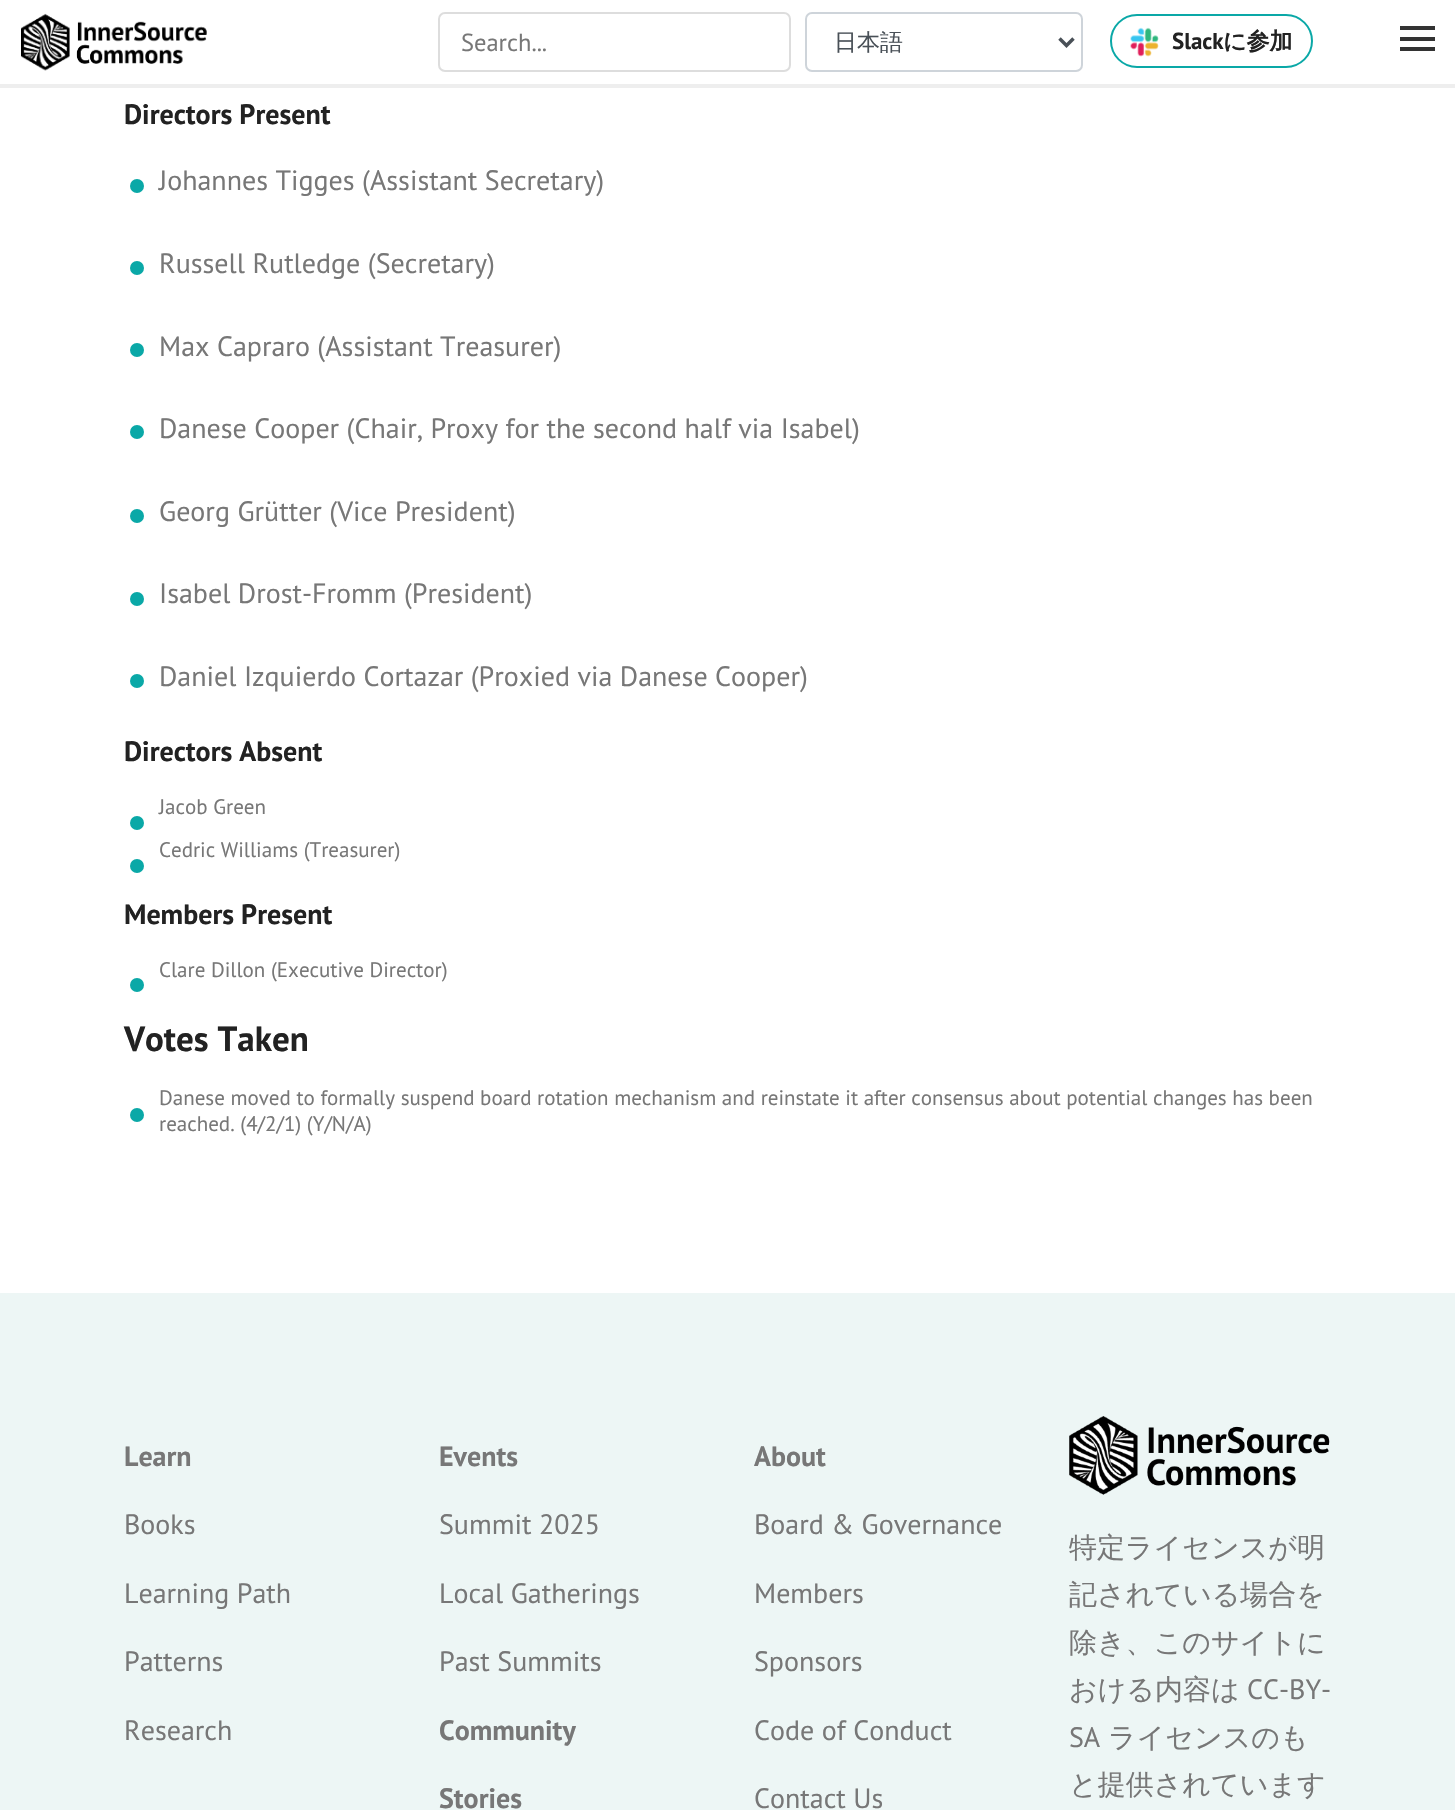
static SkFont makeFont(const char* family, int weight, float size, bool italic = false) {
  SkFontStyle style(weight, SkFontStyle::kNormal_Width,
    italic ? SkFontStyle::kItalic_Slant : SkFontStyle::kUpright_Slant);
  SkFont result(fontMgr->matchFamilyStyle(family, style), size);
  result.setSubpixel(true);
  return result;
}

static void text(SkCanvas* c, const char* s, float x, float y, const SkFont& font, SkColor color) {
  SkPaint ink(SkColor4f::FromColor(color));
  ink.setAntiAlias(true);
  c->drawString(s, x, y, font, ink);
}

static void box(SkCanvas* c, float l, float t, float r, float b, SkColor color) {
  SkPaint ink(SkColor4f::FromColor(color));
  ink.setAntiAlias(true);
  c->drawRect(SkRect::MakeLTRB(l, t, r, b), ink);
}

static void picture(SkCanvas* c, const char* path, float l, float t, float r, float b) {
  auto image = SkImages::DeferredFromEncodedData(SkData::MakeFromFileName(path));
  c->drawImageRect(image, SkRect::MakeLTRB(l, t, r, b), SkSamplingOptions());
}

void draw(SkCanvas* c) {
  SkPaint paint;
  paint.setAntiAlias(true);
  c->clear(0xffffffff);
  box(c, 0, 84, 1455, 88, 0xffeeeeee);
  picture(c, "img_01.png", 21, 13, 207, 71);
  paint.setStyle(SkPaint::kStroke_Style);
  paint.setStrokeWidth(2);
  paint.setColor(0xffdddddd);
  c->drawRoundRect(SkRect::MakeLTRB(439, 13, 790, 71), 6, 6, paint);
  SkFont face1 = makeFont("PT Sans", 400, 24.5f);
  text(c, "Search...", 461, 51, face1, 0xff777777);
  paint.setColor(0xffced4da);
  c->drawRoundRect(SkRect::MakeLTRB(806, 13, 1082, 71), 6, 6, paint);
  paint.setStrokeWidth(3.5f);
  paint.setColor(0xff495057);
  c->drawPath(SkPathBuilder().moveTo(1059.5f, 38.5f).lineTo(1066.5f, 45.5f).lineTo(1073.5f, 38.5f).detach(), paint);
  SkFont face2 = makeFont("WenQuanYi Zen Hei", 500, 23);
  text(c, "日本語", 834, 50, face2, 0xff495057);
  paint.setStrokeWidth(2);
  paint.setColor(0xff0aa8a7);
  c->drawRoundRect(SkRect::MakeLTRB(1111, 15, 1312, 67), 26, 26, paint);
  picture(c, "img_02.png", 1130, 27, 1159, 57);
  SkFont face3 = makeFont("PT Sans", 700, 23);
  text(c, "Slack", 1172, 49, face3, 0xff222222);
  SkFont face4 = makeFont("WenQuanYi Zen Hei", 700, 23);
  text(c, "に参加", 1223, 49, face4, 0xff222222);
  box(c, 1400, 37, 1435, 41, 0xff333333);
  box(c, 1400, 26, 1435, 30, 0xff333333);
  box(c, 1400, 47, 1435, 51, 0xff333333);
  SkFont face5 = makeFont("PT Sans", 700, 28);
  text(c, "Directors Present", 124, 124, face5, 0xff222222);
  paint.setStyle(SkPaint::kFill_Style);
  c->drawCircle(137, 186, 7, paint);
  SkFont face6 = makeFont("PT Sans", 400, 28);
  text(c, "Johannes Tigges (Assistant Secretary)", 159, 190, face6, 0xff777777);
  c->drawCircle(137, 268, 7, paint);
  text(c, "Russell Rutledge (Secretary)", 159, 273, face6, 0xff777777);
  c->drawCircle(137, 350, 7, paint);
  text(c, "Max Capraro (Assistant Treasurer)", 159, 356, face6, 0xff777777);
  c->drawCircle(137, 432, 7, paint);
  text(c, "Danese Cooper (Chair, Proxy for the second half via Isabel)", 159, 438, face6, 0xff777777);
  c->drawCircle(137, 516, 7, paint);
  text(c, "Georg Grütter (Vice President)", 159, 521, face6, 0xff777777);
  c->drawCircle(137, 599, 7, paint);
  text(c, "Isabel Drost-Fromm (President)", 159, 603, face6, 0xff777777);
  c->drawCircle(137, 681, 7, paint);
  text(c, "Daniel Izquierdo Cortazar (Proxied via Danese Cooper)", 159, 686, face6, 0xff777777);
  text(c, "Directors Absent", 124, 761, face5, 0xff222222);
  SkFont face7 = makeFont("PT Sans", 400, 21);
  text(c, "Jacob Green", 159, 814, face7, 0xff777777);
  c->drawCircle(137, 823, 7, paint);
  text(c, "Cedric Williams (Treasurer)", 159, 857, face7, 0xff777777);
  c->drawCircle(137, 866, 7, paint);
  text(c, "Members Present", 124, 924, face5, 0xff222222);
  text(c, "Clare Dillon (Executive Director)", 159, 977, face7, 0xff777777);
  c->drawCircle(137, 985, 7, paint);
  SkFont face8 = makeFont("PT Sans", 700, 35);
  text(c, "Votes Taken", 124, 1051, face8, 0xff222222);
  text(c, "Danese moved to formally suspend board rotation mechanism and reinstate it after consensus about potential changes has been", 159, 1105, face7, 0xff777777);
  c->drawCircle(137, 1115, 7, paint);
  text(c, "reached. (4/2/1) (Y/N/A)", 159, 1131, face7, 0xff777777);
  box(c, 0, 1293, 1455, 1810, 0xffedf6f5);
  text(c, "Learn", 124, 1466, face5, 0xff777777);
  text(c, "Books", 124, 1534, face6, 0xff777777);
  text(c, "Learning Path", 124, 1603, face6, 0xff777777);
  text(c, "Patterns", 124, 1671, face6, 0xff777777);
  text(c, "Research", 124, 1740, face6, 0xff777777);
  text(c, "Events", 439, 1466, face5, 0xff777777);
  text(c, "Summit 2025", 439, 1534, face6, 0xff777777);
  text(c, "Local Gatherings", 439, 1603, face6, 0xff777777);
  text(c, "Past Summits", 439, 1671, face6, 0xff777777);
  text(c, "Community", 439, 1740, face5, 0xff777777);
  text(c, "Stories", 439, 1808, face5, 0xff777777);
  text(c, "About", 754, 1466, face5, 0xff777777);
  text(c, "Board & Governance", 754, 1534, face6, 0xff777777);
  text(c, "Members", 754, 1603, face6, 0xff777777);
  text(c, "Sponsors", 754, 1671, face6, 0xff777777);
  text(c, "Code of Conduct", 754, 1740, face6, 0xff777777);
  text(c, "Contact Us", 754, 1808, face6, 0xff777777);
  picture(c, "img_03.png", 1069, 1416, 1330, 1495);
  SkFont face9 = makeFont("WenQuanYi Zen Hei", 500, 28);
  text(c, "特定ライセンスが明", 1069, 1557, face9, 0xff777777);
  text(c, "記されている場合を", 1069, 1604, face9, 0xff777777);
  text(c, "除き、このサイトに", 1069, 1652, face9, 0xff777777);
  text(c, "おける内容は", 1069, 1699, face9, 0xff777777);
  text(c, "CC-BY-", 1247, 1699, face6, 0xff777777);
  text(c, "SA", 1069, 1747, face6, 0xff777777);
  text(c, "ライセンスのも", 1108, 1747, face9, 0xff777777);
  text(c, "と提供されています", 1069, 1794, face9, 0xff777777);
}
